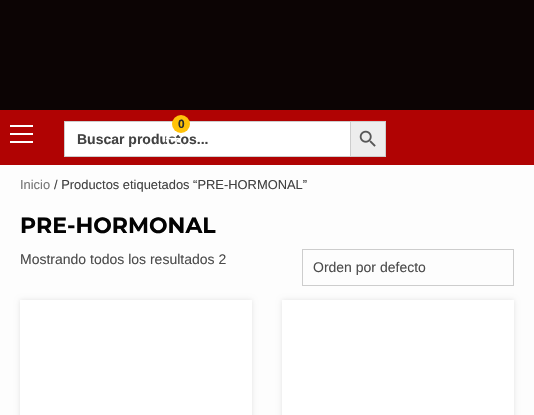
static SkFont makeFont(const char* family, int weight, float size, bool italic = false) {
  SkFontStyle style(weight, SkFontStyle::kNormal_Width,
    italic ? SkFontStyle::kItalic_Slant : SkFontStyle::kUpright_Slant);
  SkFont result(fontMgr->matchFamilyStyle(family, style), size);
  result.setSubpixel(true);
  return result;
}

static void text(SkCanvas* c, const char* s, float x, float y, const SkFont& font, SkColor color) {
  SkPaint ink(SkColor4f::FromColor(color));
  ink.setAntiAlias(true);
  c->drawString(s, x, y, font, ink);
}

static void box(SkCanvas* c, float l, float t, float r, float b, SkColor color) {
  SkPaint ink(SkColor4f::FromColor(color));
  ink.setAntiAlias(true);
  c->drawRect(SkRect::MakeLTRB(l, t, r, b), ink);
}

static void picture(SkCanvas* c, const char* path, float l, float t, float r, float b) {
  auto image = SkImages::DeferredFromEncodedData(SkData::MakeFromFileName(path));
  c->drawImageRect(image, SkRect::MakeLTRB(l, t, r, b), SkSamplingOptions());
}

void draw(SkCanvas* c) {
  SkPaint paint;
  paint.setAntiAlias(true);
  c->clear(0xfffdfdfd);
  box(c, 0, 0, 534, 110, 0xff0c0404);
  box(c, 0, 110, 534, 165, 0xffb00303);
  box(c, 65, 122, 350, 156, 0xffffffff);
  box(c, 64, 121, 350, 122, 0xffcdcdcd);
  paint.setColor(0xffffc209);
  c->drawCircle(181, 124, 9, paint);
  SkFont face1 = makeFont("Liberation Sans", 700, 12);
  text(c, "0", 178, 128, face1, 0xff252a2f);
  SkFont face2 = makeFont("Liberation Sans", 700, 14);
  text(c, "Buscar productos...", 77, 144, face2, 0xff424242);
  picture(c, "img_01.png", 165, 134, 180, 143);
  box(c, 10, 133, 33, 135, 0xffffffff);
  box(c, 10, 125, 33, 127, 0xffffffff);
  box(c, 10, 141, 33, 143, 0xffffffff);
  box(c, 64, 156, 350, 157, 0xffcdcdcd);
  box(c, 64, 121, 65, 157, 0xffcdcdcd);
  box(c, 350, 120, 386, 121, 0xffcd0303);
  paint.setColor(0xffededed);
  c->drawRect(SkRect::MakeLTRB(350.5f, 121.5f, 385.5f, 156.5f), paint);
  paint.setStyle(SkPaint::kStroke_Style);
  paint.setStrokeWidth(1);
  paint.setColor(0xffcdcdcd);
  c->drawRect(SkRect::MakeLTRB(350.5f, 121.5f, 385.5f, 156.5f), paint);
  picture(c, "img_02.png", 359, 130, 376, 147);
  SkFont face3 = makeFont("Liberation Sans", 400, 12.9f);
  text(c, "Inicio", 20, 189, face3, 0xff787878);
  text(c, "/ Productos etiquetados “PRE-HORMONAL”", 54, 189, face3, 0xff424242);
  SkFont face4 = makeFont("Montserrat", 700, 22);
  text(c, "PRE-HORMONAL", 20, 233, face4, 0xff030303);
  SkFont face5 = makeFont("Liberation Sans", 400, 14);
  text(c, "Mostrando todos los resultados 2", 20, 264, face5, 0xff4c4c4c);
  c->drawRect(SkRect::MakeLTRB(302.5f, 249.5f, 513.5f, 285.5f), paint);
  text(c, "Orden por defecto", 313, 272, face5, 0xff4c4c4c);
  paint.setStyle(SkPaint::kFill_Style);
  paint.setColor(0x1a030303);
  paint.setMaskFilter(SkMaskFilter::MakeBlur(kNormal_SkBlurStyle, 2.5f));
  c->drawRect(SkRect::MakeLTRB(20, 300, 252, 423), paint);
  paint.setMaskFilter(nullptr);
  box(c, 20, 300, 252, 415, 0xffffffff);
  paint.setMaskFilter(SkMaskFilter::MakeBlur(kNormal_SkBlurStyle, 2.5f));
  c->drawRect(SkRect::MakeLTRB(282, 300, 514, 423), paint);
  paint.setMaskFilter(nullptr);
  box(c, 282, 300, 514, 415, 0xffffffff);
}
